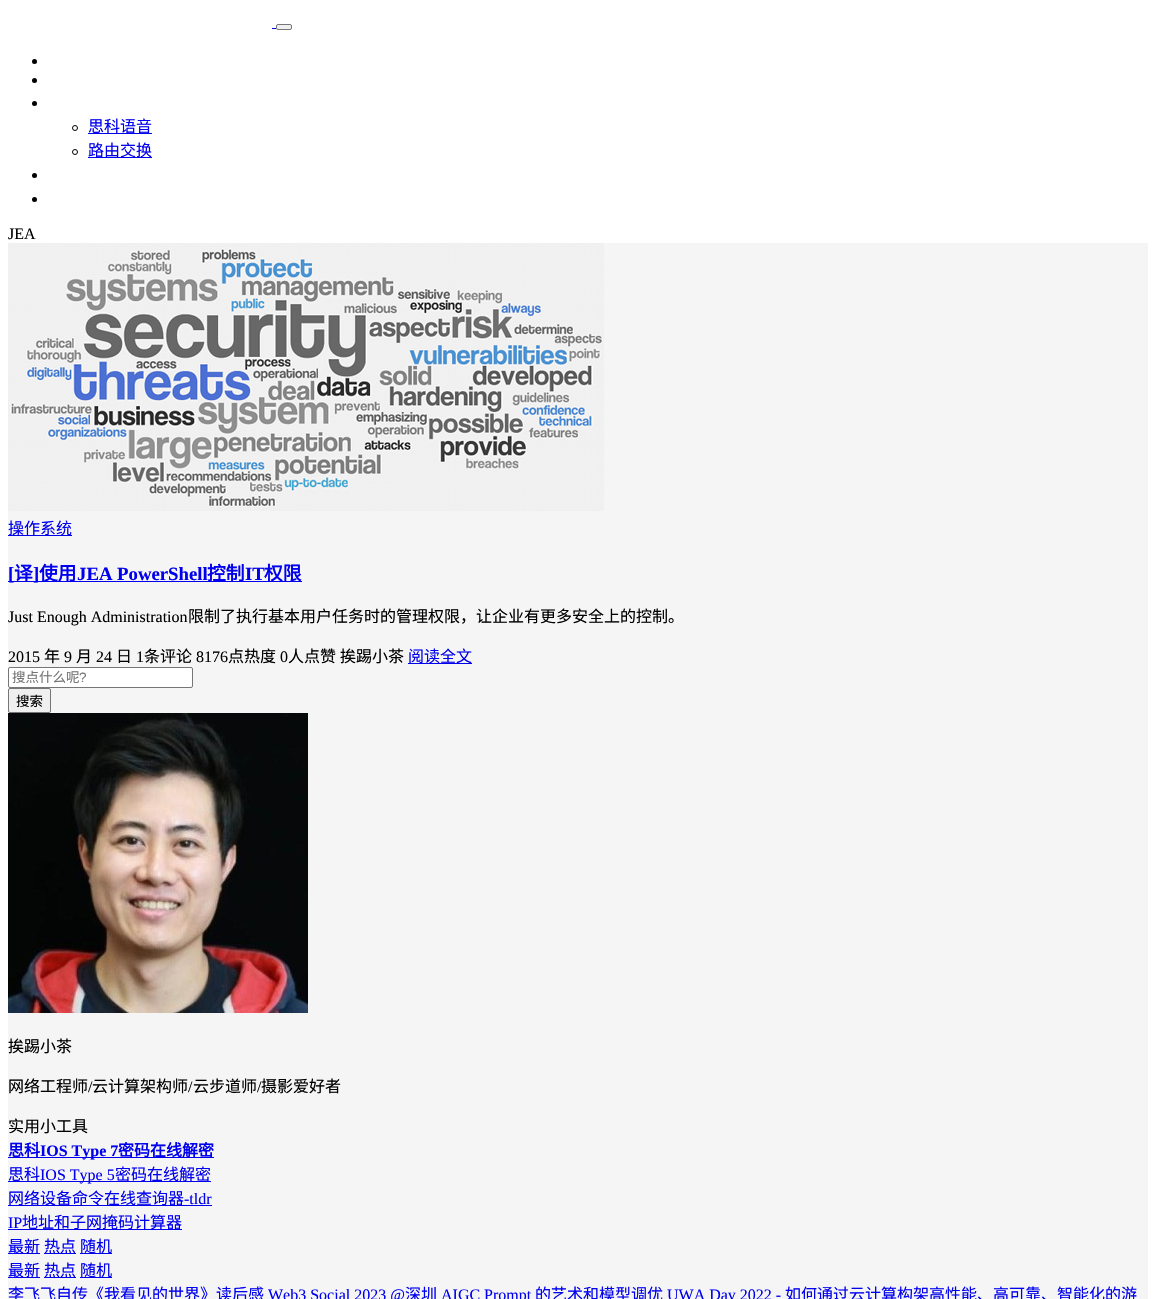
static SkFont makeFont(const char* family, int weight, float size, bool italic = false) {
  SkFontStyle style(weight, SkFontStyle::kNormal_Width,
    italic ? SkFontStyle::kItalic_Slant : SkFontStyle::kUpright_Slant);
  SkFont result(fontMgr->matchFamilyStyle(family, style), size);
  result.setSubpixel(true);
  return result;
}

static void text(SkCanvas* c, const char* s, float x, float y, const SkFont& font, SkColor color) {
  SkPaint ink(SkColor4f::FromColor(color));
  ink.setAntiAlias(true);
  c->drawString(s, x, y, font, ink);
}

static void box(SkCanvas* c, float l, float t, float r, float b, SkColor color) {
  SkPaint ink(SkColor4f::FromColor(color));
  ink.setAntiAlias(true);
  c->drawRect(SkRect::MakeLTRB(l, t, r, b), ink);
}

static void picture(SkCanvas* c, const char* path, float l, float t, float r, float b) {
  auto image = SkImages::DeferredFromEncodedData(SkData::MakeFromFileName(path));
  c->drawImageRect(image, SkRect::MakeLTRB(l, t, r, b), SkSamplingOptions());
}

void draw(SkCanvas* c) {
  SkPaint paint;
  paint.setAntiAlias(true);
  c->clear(0xffffffff);
  box(c, 272, 28, 276, 29, 0xff0000ee);
  paint.setColor(0xffefefef);
  c->drawRoundRect(SkRect::MakeLTRB(276.5f, 24.5f, 291.5f, 29.5f), 1.5f, 1.5f, paint);
  paint.setStyle(SkPaint::kStroke_Style);
  paint.setStrokeWidth(1);
  paint.setColor(0xff767676);
  c->drawRoundRect(SkRect::MakeLTRB(276.5f, 24.5f, 291.5f, 29.5f), 1.5f, 1.5f, paint);
  paint.setStyle(SkPaint::kFill_Style);
  paint.setColor(0xff000000);
  c->drawCircle(34.5f, 61.5f, 2.5f, paint);
  c->drawCircle(34.5f, 80.5f, 2.5f, paint);
  c->drawCircle(34.5f, 103.5f, 2.5f, paint);
  paint.setStyle(SkPaint::kStroke_Style);
  c->drawCircle(75, 128, 2.5f, paint);
  box(c, 88, 133, 152, 134, 0xff0000ee);
  SkFont face1 = makeFont("Noto Sans CJK SC", 400, 16);
  text(c, "思科语音", 88, 132, face1, 0xff0000ee);
  c->drawCircle(75, 152, 2.5f, paint);
  box(c, 88, 157, 152, 158, 0xff0000ee);
  text(c, "路由交换", 88, 156, face1, 0xff0000ee);
  paint.setStyle(SkPaint::kFill_Style);
  c->drawCircle(34.5f, 175.5f, 2.5f, paint);
  c->drawCircle(34.5f, 199.5f, 2.5f, paint);
  SkFont face2 = makeFont("Liberation Serif", 400, 16);
  text(c, "JEA", 8, 239, face2, 0xff000000);
  box(c, 8, 243, 1148, 1299, 0xfff5f5f5);
  picture(c, "img_01.png", 8, 243, 604, 511);
  box(c, 8, 535, 72, 536, 0xff0000ee);
  text(c, "操作系统", 8, 534, face1, 0xff0000ee);
  box(c, 8, 581, 302, 582, 0xff0000ee);
  SkFont face3 = makeFont("Liberation Serif", 700, 18.75f);
  text(c, "[", 8, 580, face3, 0xff0000ee);
  SkFont face4 = makeFont("Noto Sans CJK SC", 700, 18.75f);
  text(c, "译", 14, 580, face4, 0xff0000ee);
  text(c, "]", 33, 580, face3, 0xff0000ee);
  text(c, "使用", 39, 580, face4, 0xff0000ee);
  text(c, "JEA PowerShell", 77, 580, face3, 0xff0000ee);
  text(c, "控制", 207, 580, face4, 0xff0000ee);
  text(c, "IT", 245, 580, face3, 0xff0000ee);
  text(c, "权限", 264, 580, face4, 0xff0000ee);
  text(c, "Just Enough Administration", 8, 622, face2, 0xff000000);
  text(c, "限制了执行基本用户任务时的管理权限，让企业有更多安全上的控制。", 188, 622, face1, 0xff000000);
  text(c, "2015", 8, 662, face2, 0xff000000);
  text(c, "年", 44, 662, face1, 0xff000000);
  text(c, "9", 64, 662, face2, 0xff000000);
  text(c, "月", 76, 662, face1, 0xff000000);
  text(c, "24", 96, 662, face2, 0xff000000);
  text(c, "日", 116, 662, face1, 0xff000000);
  text(c, "1", 136, 662, face2, 0xff000000);
  text(c, "条评论", 144, 662, face1, 0xff000000);
  text(c, "8176", 196, 662, face2, 0xff000000);
  text(c, "点热度", 228, 662, face1, 0xff000000);
  text(c, "0", 280, 662, face2, 0xff000000);
  text(c, "人点赞", 288, 662, face1, 0xff000000);
  text(c, "挨踢小茶", 340, 662, face1, 0xff000000);
  box(c, 408, 663, 472, 664, 0xff0000ee);
  text(c, "阅读全文", 408, 662, face1, 0xff0000ee);
  paint.setColor(0xffffffff);
  c->drawRoundRect(SkRect::MakeLTRB(8.5f, 667.5f, 192.5f, 687.5f), 1.5f, 1.5f, paint);
  paint.setStyle(SkPaint::kStroke_Style);
  paint.setColor(0xff767676);
  c->drawRoundRect(SkRect::MakeLTRB(8.5f, 667.5f, 192.5f, 687.5f), 1.5f, 1.5f, paint);
  SkFont face5 = makeFont("Noto Sans CJK SC", 400, 13.5f);
  text(c, "搜点什么呢", 12, 682, face5, 0xff757575);
  SkFont face6 = makeFont("Liberation Sans", 400, 13.5f);
  text(c, "?", 79, 682, face6, 0xff757575);
  paint.setStyle(SkPaint::kFill_Style);
  paint.setColor(0xffefefef);
  c->drawRoundRect(SkRect::MakeLTRB(8.5f, 688.5f, 50.5f, 712.5f), 1.5f, 1.5f, paint);
  paint.setStyle(SkPaint::kStroke_Style);
  paint.setColor(0xff767676);
  c->drawRoundRect(SkRect::MakeLTRB(8.5f, 688.5f, 50.5f, 712.5f), 1.5f, 1.5f, paint);
  text(c, "搜索", 16, 706, face5, 0xff000000);
  picture(c, "img_02.png", 8, 713, 308, 1013);
  text(c, "挨踢小茶", 8, 1052, face1, 0xff000000);
  text(c, "网络工程师", 8, 1092, face1, 0xff000000);
  text(c, "/", 88, 1092, face2, 0xff000000);
  text(c, "云计算架构师", 92, 1092, face1, 0xff000000);
  text(c, "/", 188, 1092, face2, 0xff000000);
  text(c, "云步道师", 193, 1092, face1, 0xff000000);
  text(c, "/", 257, 1092, face2, 0xff000000);
  text(c, "摄影爱好者", 261, 1092, face1, 0xff000000);
  text(c, "实用小工具", 8, 1132, face1, 0xff000000);
  box(c, 8, 1157, 214, 1158, 0xff0000ee);
  SkFont face7 = makeFont("Noto Sans CJK SC", 700, 16);
  text(c, "思科", 8, 1156, face7, 0xff0000ee);
  SkFont face8 = makeFont("Liberation Serif", 700, 16);
  text(c, "IOS Type 7", 40, 1156, face8, 0xff0000ee);
  text(c, "密码在线解密", 118, 1156, face7, 0xff0000ee);
  box(c, 8, 1181, 211, 1182, 0xff0000ee);
  text(c, "思科", 8, 1180, face1, 0xff0000ee);
  text(c, "IOS Type 5", 40, 1180, face2, 0xff0000ee);
  text(c, "密码在线解密", 115, 1180, face1, 0xff0000ee);
  box(c, 8, 1205, 212, 1206, 0xff0000ee);
  text(c, "网络设备命令在线查询器", 8, 1204, face1, 0xff0000ee);
  text(c, "-tldr", 184, 1204, face2, 0xff0000ee);
  text(c, "IP", 8, 1228, face2, 0xff0000ee);
  box(c, 8, 1229, 182, 1230, 0xff0000ee);
  text(c, "地址和子网掩码计算器", 22, 1228, face1, 0xff0000ee);
  box(c, 8, 1253, 40, 1254, 0xff0000ee);
  text(c, "最新", 8, 1252, face1, 0xff0000ee);
  box(c, 44, 1253, 76, 1254, 0xff0000ee);
  text(c, "热点", 44, 1252, face1, 0xff0000ee);
  box(c, 80, 1253, 112, 1254, 0xff0000ee);
  text(c, "随机", 80, 1252, face1, 0xff0000ee);
  box(c, 8, 1277, 40, 1278, 0xff0000ee);
  text(c, "最新", 8, 1276, face1, 0xff0000ee);
  box(c, 44, 1277, 76, 1278, 0xff0000ee);
  text(c, "热点", 44, 1276, face1, 0xff0000ee);
  box(c, 80, 1277, 112, 1278, 0xff0000ee);
  text(c, "随机", 80, 1276, face1, 0xff0000ee);
  text(c, "李飞飞自传《我看见的世界》读后感", 8, 1300, face1, 0xff0000ee);
  text(c, "Web3 Social 2023 @", 268, 1300, face2, 0xff0000ee);
  text(c, "深圳", 405, 1300, face1, 0xff0000ee);
  text(c, "AIGC Prompt", 441, 1300, face2, 0xff0000ee);
  text(c, "的艺术和模型调优", 535, 1300, face1, 0xff0000ee);
  text(c, "UWA Day 2022 -", 667, 1300, face2, 0xff0000ee);
  text(c, "如何通过云计算构架高性能、高可靠、智能化的游", 785, 1300, face1, 0xff0000ee);
}
